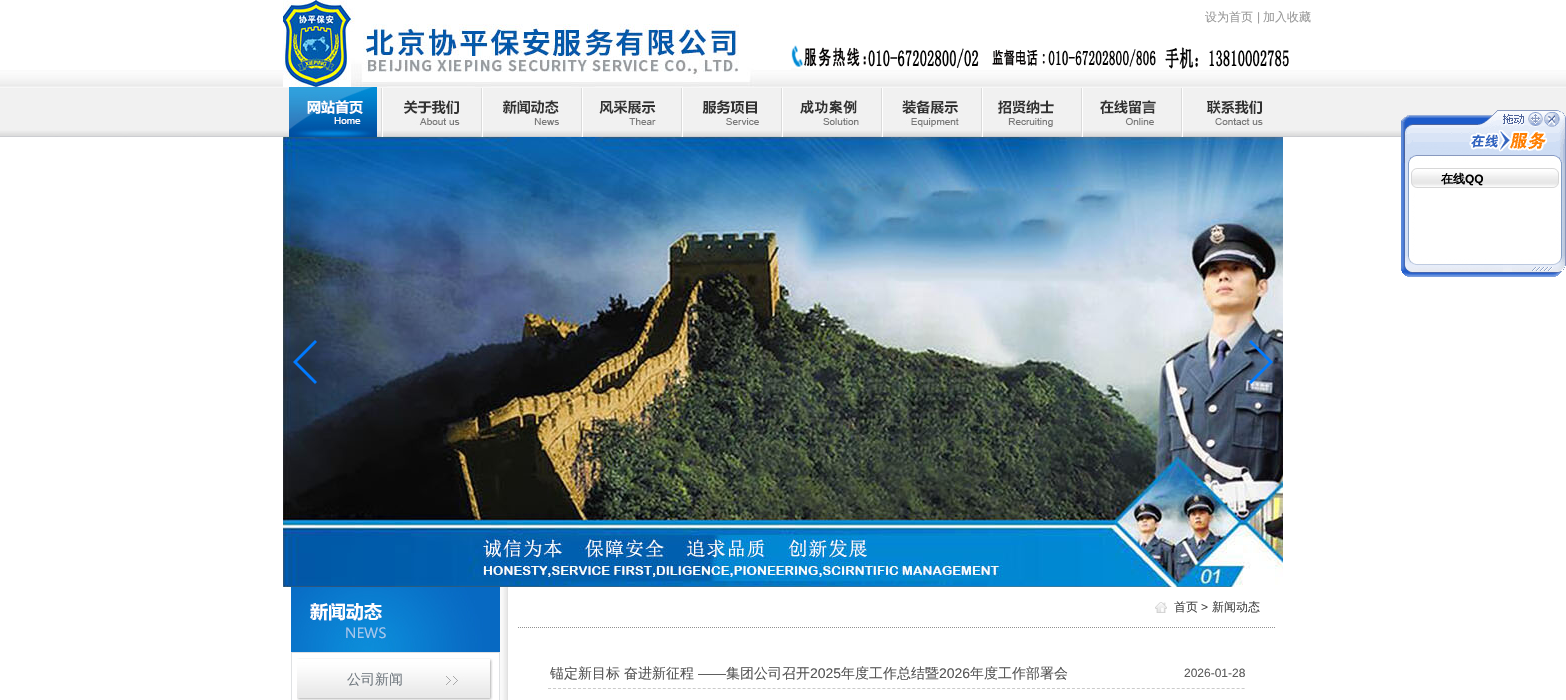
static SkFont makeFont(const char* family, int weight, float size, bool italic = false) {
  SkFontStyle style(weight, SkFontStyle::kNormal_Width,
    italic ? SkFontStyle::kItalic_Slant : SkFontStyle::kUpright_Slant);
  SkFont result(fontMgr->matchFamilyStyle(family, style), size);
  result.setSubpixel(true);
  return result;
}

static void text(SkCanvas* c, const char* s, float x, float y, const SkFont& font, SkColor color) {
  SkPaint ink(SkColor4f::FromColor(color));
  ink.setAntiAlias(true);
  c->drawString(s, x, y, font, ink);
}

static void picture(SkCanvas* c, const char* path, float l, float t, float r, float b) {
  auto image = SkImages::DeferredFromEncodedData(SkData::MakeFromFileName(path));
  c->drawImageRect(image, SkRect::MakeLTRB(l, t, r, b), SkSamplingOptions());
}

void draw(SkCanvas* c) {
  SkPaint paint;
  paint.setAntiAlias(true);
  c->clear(0xffffffff);
  picture(c, "img_01.png", 0, 70, 1566, 137);
  picture(c, "img_02.png", 283, 0, 754, 87);
  SkFont face1 = makeFont("WenQuanYi Zen Hei", 500, 12);
  text(c, "设为首页", 1205, 21, face1, 0xff999999);
  SkFont face2 = makeFont("Liberation Sans", 400, 12);
  text(c, "|", 1257, 21, face2, 0xff999999);
  text(c, "加入收藏", 1263, 21, face1, 0xff999999);
  picture(c, "img_03.png", 791, 45, 1289, 70);
  picture(c, "img_04.png", 381, 88, 383, 137);
  picture(c, "img_05.png", 289, 87, 377, 137);
  picture(c, "img_04.png", 481, 88, 483, 137);
  picture(c, "img_06.png", 404, 100, 460, 125);
  picture(c, "img_04.png", 581, 88, 583, 137);
  picture(c, "img_07.png", 503, 100, 559, 125);
  picture(c, "img_04.png", 681, 88, 683, 137);
  picture(c, "img_08.png", 599, 100, 656, 125);
  picture(c, "img_04.png", 781, 88, 783, 137);
  picture(c, "img_09.png", 702, 100, 759, 125);
  picture(c, "img_04.png", 881, 88, 883, 137);
  picture(c, "img_10.png", 800, 100, 859, 125);
  picture(c, "img_04.png", 981, 88, 983, 137);
  picture(c, "img_11.png", 902, 100, 959, 127);
  picture(c, "img_04.png", 1081, 88, 1083, 137);
  picture(c, "img_12.png", 998, 100, 1054, 127);
  picture(c, "img_04.png", 1181, 88, 1183, 137);
  picture(c, "img_13.png", 1100, 100, 1156, 125);
  picture(c, "img_14.png", 1207, 100, 1263, 125);
  picture(c, "img_15.png", 283, 137, 1283, 587);
  paint.setColor(0xff007aff);
  c->drawPath(SkPathBuilder().moveTo(293, 362).lineTo(315, 340).lineTo(317, 342).lineTo(297, 362).lineTo(317, 382).lineTo(315, 384).close().detach(), paint);
  c->drawPath(SkPathBuilder().moveTo(1273, 362).lineTo(1251, 384).lineTo(1249, 382).lineTo(1269, 362).lineTo(1249, 342).lineTo(1251, 340).close().detach(), paint);
  picture(c, "img_16.png", 1401, 110, 1566, 163);
  picture(c, "img_17.png", 1401, 163, 1566, 196);
  SkFont face3 = makeFont("WenQuanYi Zen Hei", 700, 12);
  text(c, "在线", 1441, 183, face3, 0xff000000);
  SkFont face4 = makeFont("Liberation Sans", 700, 12);
  text(c, "QQ", 1465, 183, face4, 0xff000000);
  picture(c, "img_18.png", 1401, 196, 1566, 256);
  picture(c, "img_19.png", 1401, 256, 1566, 277);
  picture(c, "img_20.png", 291, 587, 500, 652);
  paint.setStyle(SkPaint::kStroke_Style);
  paint.setStrokeWidth(1);
  paint.setColor(0xffdfe1e3);
  c->drawRect(SkRect::MakeLTRB(291.5f, 652.5f, 499.5f, 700.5f), paint);
  picture(c, "img_21.png", 297, 658, 493, 700);
  SkFont face5 = makeFont("WenQuanYi Zen Hei", 500, 14);
  text(c, "公司新闻", 347, 684, face5, 0xff737b82);
  picture(c, "img_22.png", 500, 587, 508, 700);
  paint.setColor(0xff919191);
  paint.setPathEffect(SkDashPathEffect::Make({{1, 1}}, 0));
  c->drawPath(SkPathBuilder().moveTo(518, 627.5f).lineTo(1275, 627.5f).detach(), paint);
  paint.setPathEffect(nullptr);
  picture(c, "img_23.png", 1155, 602, 1167, 613);
  text(c, "首页", 1174, 611, face1, 0xff454545);
  text(c, ">", 1201, 611, face2, 0xff454545);
  text(c, "新闻动态", 1212, 611, face1, 0xff454545);
  paint.setColor(0xffcccccc);
  paint.setPathEffect(SkDashPathEffect::Make({{3, 1.99f}}, 0));
  c->drawPath(SkPathBuilder().moveTo(548, 688.5f).lineTo(1245, 688.5f).detach(), paint);
  paint.setPathEffect(nullptr);
  text(c, "锚定新目标", 550, 678, face5, 0xff555555);
  text(c, "奋进新征程", 624, 678, face5, 0xff555555);
  SkFont face6 = makeFont("Liberation Sans", 400, 14);
  text(c, "——", 698, 678, face6, 0xff555555);
  text(c, "集团公司召开", 726, 678, face5, 0xff555555);
  text(c, "2025", 810, 678, face6, 0xff555555);
  text(c, "年度工作总结暨", 841, 678, face5, 0xff555555);
  text(c, "2026", 939, 678, face6, 0xff555555);
  text(c, "年度工作部署会", 970, 678, face5, 0xff555555);
  text(c, "2026-01-28", 1184, 677, face2, 0xff5c5c5c);
}
